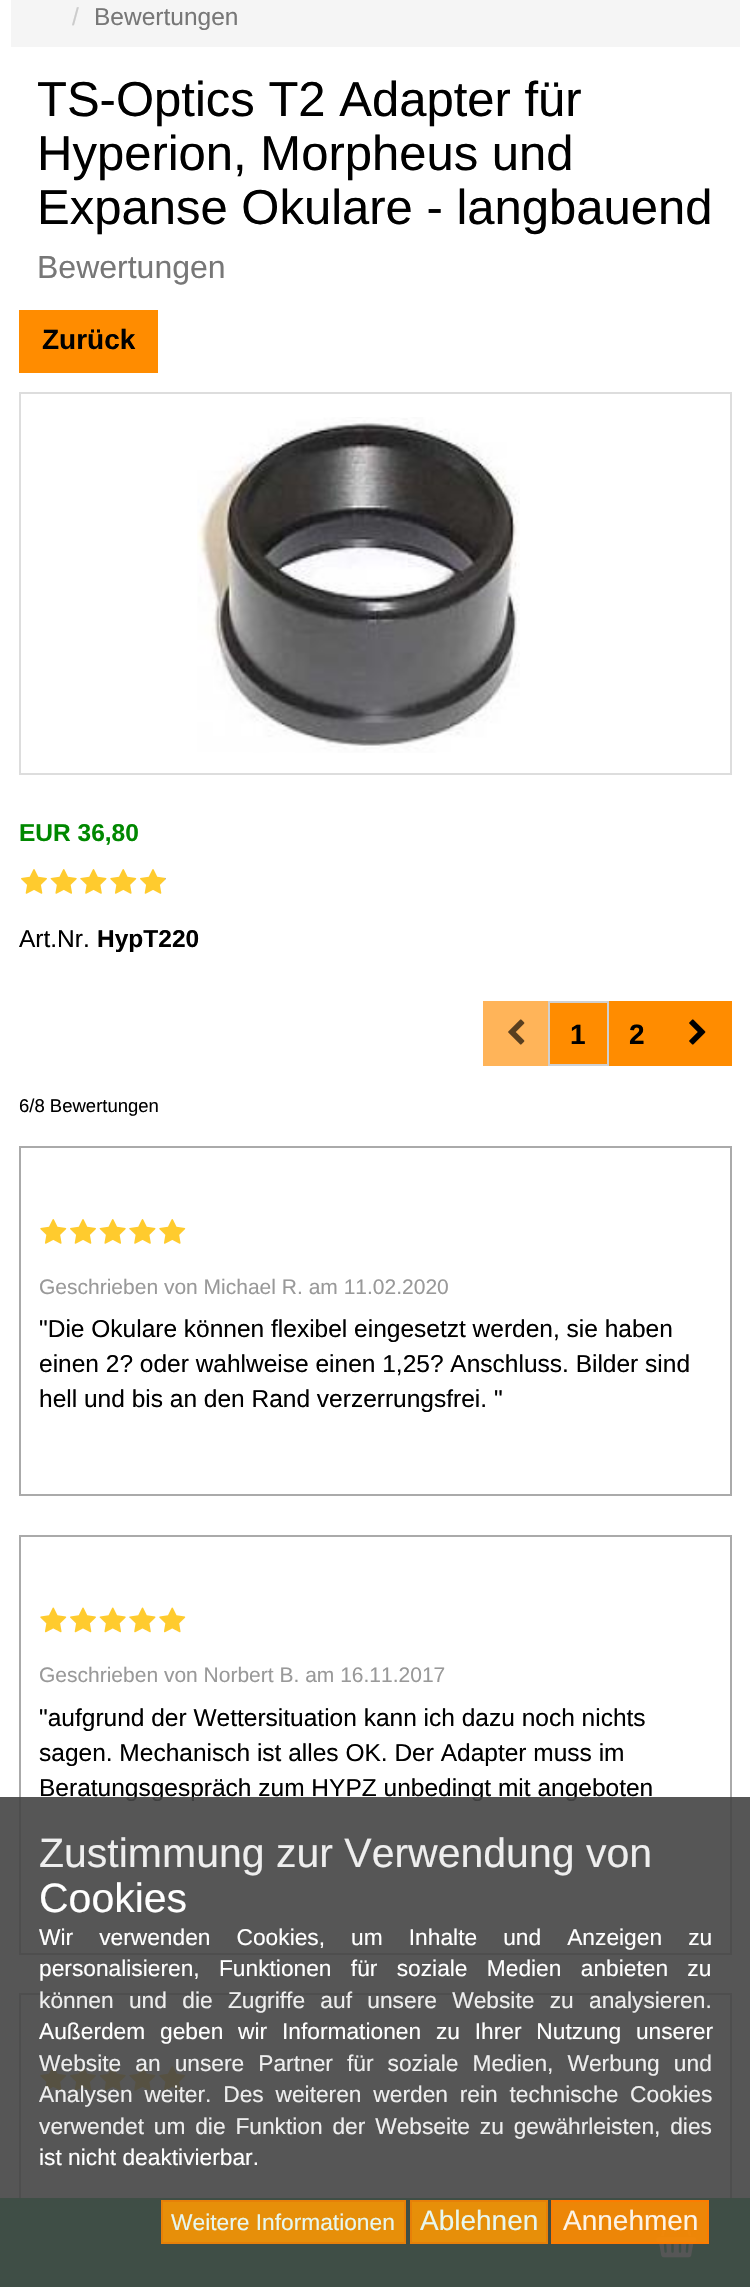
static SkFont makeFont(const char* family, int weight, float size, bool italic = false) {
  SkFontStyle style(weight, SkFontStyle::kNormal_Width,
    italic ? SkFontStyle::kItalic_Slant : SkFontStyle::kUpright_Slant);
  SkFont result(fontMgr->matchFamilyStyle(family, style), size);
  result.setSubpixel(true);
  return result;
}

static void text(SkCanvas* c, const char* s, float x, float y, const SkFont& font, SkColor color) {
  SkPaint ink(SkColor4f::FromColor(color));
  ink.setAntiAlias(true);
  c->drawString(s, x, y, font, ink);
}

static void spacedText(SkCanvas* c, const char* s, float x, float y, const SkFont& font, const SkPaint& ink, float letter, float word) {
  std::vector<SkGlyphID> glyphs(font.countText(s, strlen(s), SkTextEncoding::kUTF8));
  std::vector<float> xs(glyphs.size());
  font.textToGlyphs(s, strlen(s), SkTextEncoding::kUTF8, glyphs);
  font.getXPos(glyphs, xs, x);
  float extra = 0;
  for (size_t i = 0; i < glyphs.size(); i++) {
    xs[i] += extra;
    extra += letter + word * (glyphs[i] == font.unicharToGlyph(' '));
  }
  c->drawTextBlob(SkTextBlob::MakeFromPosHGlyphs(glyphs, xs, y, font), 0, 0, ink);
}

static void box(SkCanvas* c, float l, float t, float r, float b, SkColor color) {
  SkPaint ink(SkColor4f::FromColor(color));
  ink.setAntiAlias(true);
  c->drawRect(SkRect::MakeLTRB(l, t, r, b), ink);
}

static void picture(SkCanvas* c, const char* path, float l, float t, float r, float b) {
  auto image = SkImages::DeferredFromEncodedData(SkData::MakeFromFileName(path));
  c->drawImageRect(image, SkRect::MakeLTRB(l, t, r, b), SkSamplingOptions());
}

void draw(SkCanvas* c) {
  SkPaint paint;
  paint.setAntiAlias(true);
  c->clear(0xffffffff);
  box(c, 11, 0, 740, 47, 0xfff5f5f5);
  SkFont face1 = makeFont("Liberation Sans", 400, 24.5f);
  text(c, "/", 72, 25, face1, 0xffcccccc);
  text(c, "Bewertungen", 94, 25, face1, 0xff777777);
  SkFont face2 = makeFont("Liberation Sans", 400, 49);
  text(c, "TS-Optics T2 Adapter für", 37, 116, face2, 0xff000000);
  text(c, "Hyperion, Morpheus und", 37, 170, face2, 0xff000000);
  text(c, "Expanse Okulare - langbauend", 37, 224, face2, 0xff000000);
  SkFont face3 = makeFont("Liberation Sans", 400, 32);
  text(c, "Bewertungen", 37, 278, face3, 0xff777777);
  box(c, 19, 310, 158, 373, 0xffff8c00);
  SkFont face4 = makeFont("Liberation Sans", 700, 28);
  text(c, "Zurück", 42, 349, face4, 0xff000000);
  paint.setStyle(SkPaint::kStroke_Style);
  paint.setStrokeWidth(2);
  paint.setColor(0xffdddddd);
  c->drawRect(SkRect::MakeLTRB(20, 393, 731, 774), paint);
  picture(c, "img_01.png", 197, 417, 520, 753);
  SkFont face5 = makeFont("Liberation Sans", 700, 24.5f);
  text(c, "EUR 36,80", 19, 841, face5, 0xff008800);
  picture(c, "img_02.png", 21, 869, 47, 894);
  picture(c, "img_08.png", 50, 878, 51, 879);
  picture(c, "img_03.png", 50, 869, 77, 894);
  picture(c, "img_09.png", 80, 878, 81, 880);
  picture(c, "img_04.png", 80, 869, 107, 894);
  picture(c, "img_05.png", 110, 869, 137, 894);
  picture(c, "img_06.png", 140, 869, 165, 894);
  picture(c, "img_07.png", 165, 877, 166, 880);
  text(c, "Art.Nr.", 19, 947, face1, 0xff000000);
  text(c, "HypT220", 97, 947, face5, 0xff000000);
  box(c, 483, 1001, 548, 1066, 0xffffb459);
  picture(c, "img_10.png", 508, 1019, 525, 1045);
  paint.setStyle(SkPaint::kFill_Style);
  paint.setColor(0xffff8c00);
  c->drawRect(SkRect::MakeLTRB(549, 1002, 608, 1065), paint);
  paint.setStyle(SkPaint::kStroke_Style);
  paint.setColor(0xffd0d0d0);
  c->drawRect(SkRect::MakeLTRB(549, 1002, 608, 1065), paint);
  text(c, "1", 570, 1044, face4, 0xff000000);
  box(c, 609, 1001, 732, 1066, 0xffff8c00);
  text(c, "2", 629, 1044, face4, 0xff000000);
  picture(c, "img_11.png", 689, 1019, 706, 1045);
  SkFont face6 = makeFont("Liberation Sans", 400, 18.5f);
  text(c, "6/8 Bewertungen", 19, 1112, face6, 0xff000000);
  paint.setColor(0xffaaaaaa);
  c->drawRect(SkRect::MakeLTRB(20, 1147, 731, 1495), paint);
  picture(c, "img_05.png", 40, 1219, 67, 1244);
  picture(c, "img_02.png", 70, 1219, 96, 1244);
  picture(c, "img_08.png", 99, 1228, 100, 1229);
  picture(c, "img_03.png", 99, 1219, 126, 1244);
  picture(c, "img_09.png", 129, 1228, 130, 1230);
  picture(c, "img_04.png", 129, 1219, 156, 1244);
  picture(c, "img_05.png", 159, 1219, 186, 1244);
  SkFont face7 = makeFont("Liberation Sans", 400, 21);
  text(c, "Geschrieben von Michael R. am 11.02.2020", 39, 1294, face7, 0xff999999);
  text(c, "\"Die Okulare können flexibel eingesetzt werden, sie haben", 39, 1337, face1, 0xff000000);
  text(c, "einen 2? oder wahlweise einen 1,25? Anschluss. Bilder sind", 39, 1372, face1, 0xff000000);
  text(c, "hell und bis an den Rand verzerrungsfrei. \"", 39, 1407, face1, 0xff000000);
  c->drawRect(SkRect::MakeLTRB(20, 1536, 731, 1954), paint);
  picture(c, "img_12.png", 40, 1607, 67, 1633);
  picture(c, "img_13.png", 70, 1607, 96, 1633);
  picture(c, "img_16.png", 99, 1616, 100, 1618);
  picture(c, "img_14.png", 99, 1607, 126, 1633);
  picture(c, "img_17.png", 129, 1616, 130, 1618);
  picture(c, "img_15.png", 129, 1607, 156, 1633);
  picture(c, "img_12.png", 159, 1607, 186, 1633);
  text(c, "Geschrieben von Norbert B. am 16.11.2017", 39, 1682, face7, 0xff999999);
  text(c, "\"aufgrund der Wettersituation kann ich dazu noch nichts", 39, 1726, face1, 0xff000000);
  text(c, "sagen. Mechanisch ist alles OK. Der Adapter muss im", 39, 1761, face1, 0xff000000);
  text(c, "Beratungsgespräch zum HYPZ unbedingt mit angeboten", 39, 1796, face1, 0xff000000);
  c->drawRect(SkRect::MakeLTRB(20, 1994, 731, 2272), paint);
  picture(c, "img_05.png", 40, 2066, 67, 2091);
  picture(c, "img_02.png", 70, 2066, 96, 2091);
  picture(c, "img_08.png", 99, 2075, 100, 2076);
  picture(c, "img_03.png", 99, 2066, 126, 2091);
  picture(c, "img_09.png", 129, 2075, 130, 2077);
  picture(c, "img_04.png", 129, 2066, 156, 2091);
  picture(c, "img_05.png", 159, 2066, 186, 2091);
  box(c, 0, 2198, 750, 2287, 0xff13ae58);
  picture(c, "img_18.png", 656, 2222, 697, 2258);
  box(c, 0, 1797, 750, 2287, 0xe6444444);
  SkFont face8 = makeFont("Liberation Sans", 400, 41);
  text(c, "Zustimmung zur Verwendung von", 39, 1867, face8, 0xffeeeeee);
  text(c, "Cookies", 39, 1912, face8, 0xffffffff);
  SkFont face9 = makeFont("Liberation Sans", 400, 22.75f);
  paint.setStyle(SkPaint::kFill_Style);
  paint.setColor(0xffffffff);
  spacedText(c, "Wir verwenden Cookies, um Inhalte und Anzeigen zu", 39, 1945, face9, paint, 0, 19.75f);
  spacedText(c, "personalisieren, Funktionen für soziale Medien anbieten zu", 39, 1976, face9, paint, 0, 13);
  paint.setColor(0xffeeeeee);
  spacedText(c, "können und die Zugriffe auf unsere Website zu analysieren.", 39, 2008, face9, paint, 0, 9);
  paint.setColor(0xffffffff);
  spacedText(c, "Außerdem geben wir Informationen zu Ihrer Nutzung unserer", 39, 2039, face9, paint, 0, 8.5f);
  paint.setColor(0xffeeeeee);
  spacedText(c, "Website an unsere Partner für soziale Medien, Werbung und", 39, 2071, face9, paint, 0, 7.75f);
  spacedText(c, "Analysen weiter. Des weiteren werden rein technische Cookies", 39, 2102, face9, paint, 0, 5.5f);
  spacedText(c, "verwendet um die Funktion der Webseite zu gewährleisten, dies", 39, 2134, face9, paint, 0, 3.5f);
  text(c, "ist nicht deaktivierbar.", 39, 2165, face9, 0xffffffff);
  paint.setColor(0xffe78f09);
  c->drawRect(SkRect::MakeLTRB(162, 2201, 405, 2243), paint);
  paint.setStyle(SkPaint::kStroke_Style);
  paint.setColor(0xffe78009);
  c->drawRect(SkRect::MakeLTRB(162, 2201, 405, 2243), paint);
  text(c, "Weitere Informationen", 171, 2230, face9, 0xffe7f7ee);
  paint.setStyle(SkPaint::kFill_Style);
  paint.setColor(0xffe78f09);
  c->drawRect(SkRect::MakeLTRB(411, 2201, 547, 2243), paint);
  paint.setStyle(SkPaint::kStroke_Style);
  paint.setColor(0xffe78009);
  c->drawRect(SkRect::MakeLTRB(411, 2201, 547, 2243), paint);
  SkFont face10 = makeFont("Liberation Sans", 400, 28);
  text(c, "Ablehnen", 420, 2230, face10, 0xffe7f7ee);
  paint.setStyle(SkPaint::kFill_Style);
  paint.setColor(0xe6ff8c00);
  c->drawRect(SkRect::MakeLTRB(552, 2201, 708, 2243), paint);
  paint.setStyle(SkPaint::kStroke_Style);
  paint.setColor(0xfffd7c01);
  c->drawRect(SkRect::MakeLTRB(552, 2201, 708, 2243), paint);
  text(c, "Annehmen", 563, 2230, face10, 0xfffdf3e6);
}
